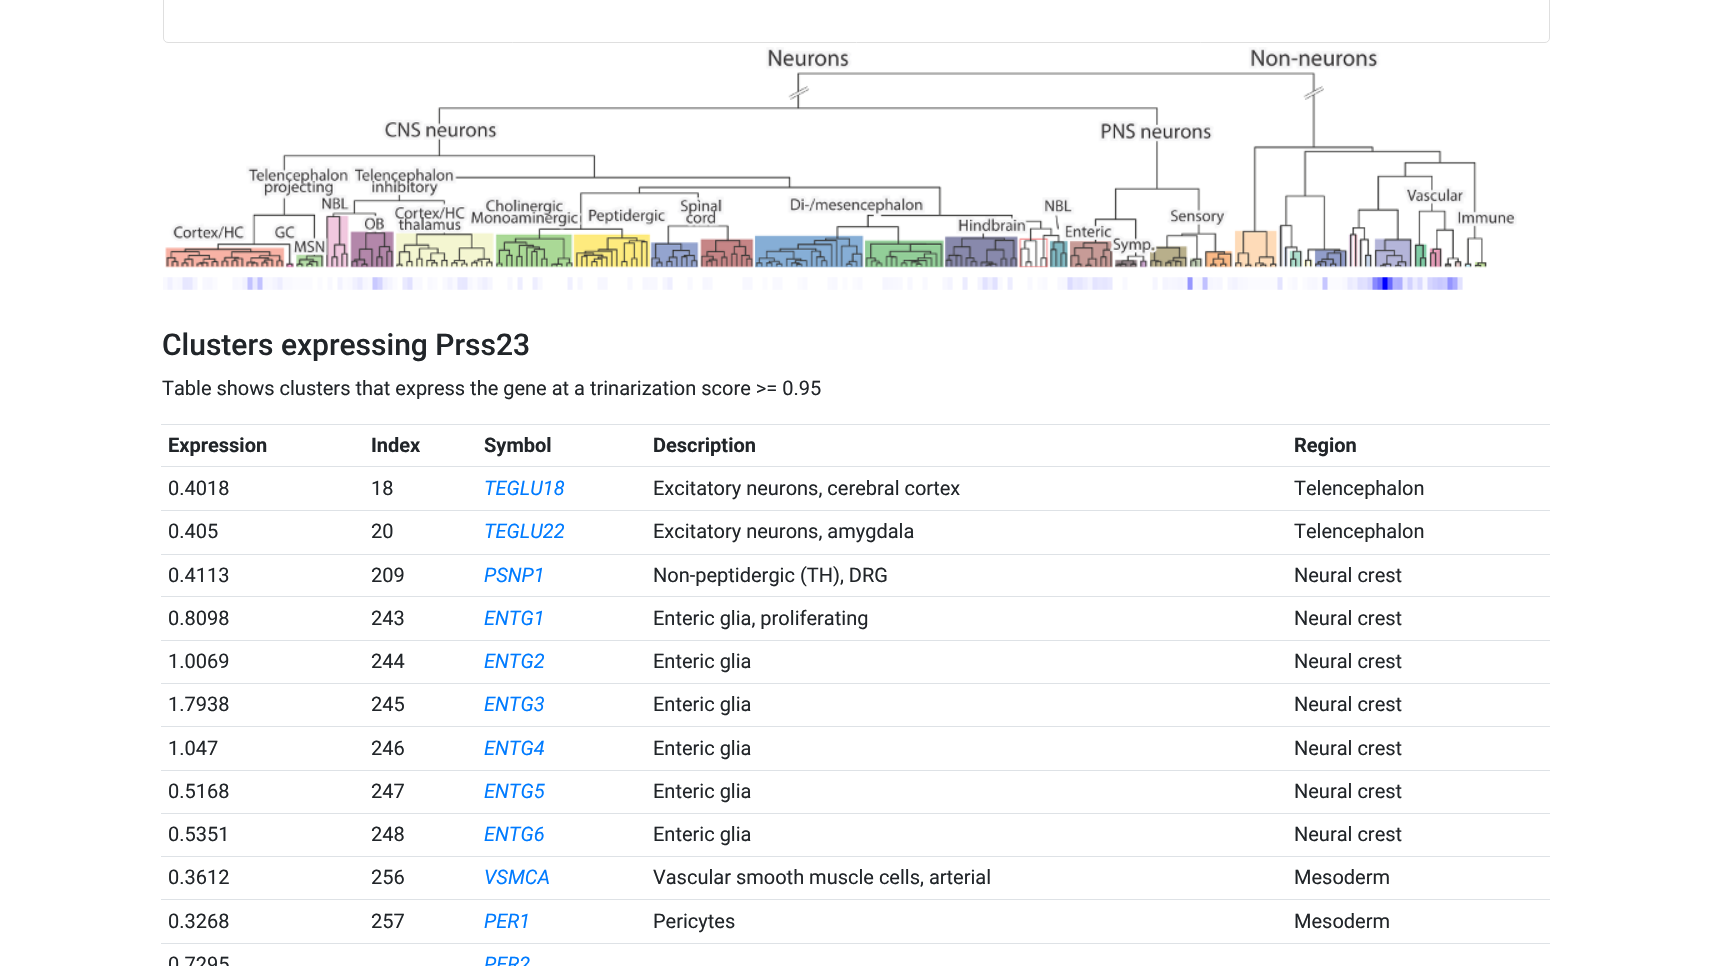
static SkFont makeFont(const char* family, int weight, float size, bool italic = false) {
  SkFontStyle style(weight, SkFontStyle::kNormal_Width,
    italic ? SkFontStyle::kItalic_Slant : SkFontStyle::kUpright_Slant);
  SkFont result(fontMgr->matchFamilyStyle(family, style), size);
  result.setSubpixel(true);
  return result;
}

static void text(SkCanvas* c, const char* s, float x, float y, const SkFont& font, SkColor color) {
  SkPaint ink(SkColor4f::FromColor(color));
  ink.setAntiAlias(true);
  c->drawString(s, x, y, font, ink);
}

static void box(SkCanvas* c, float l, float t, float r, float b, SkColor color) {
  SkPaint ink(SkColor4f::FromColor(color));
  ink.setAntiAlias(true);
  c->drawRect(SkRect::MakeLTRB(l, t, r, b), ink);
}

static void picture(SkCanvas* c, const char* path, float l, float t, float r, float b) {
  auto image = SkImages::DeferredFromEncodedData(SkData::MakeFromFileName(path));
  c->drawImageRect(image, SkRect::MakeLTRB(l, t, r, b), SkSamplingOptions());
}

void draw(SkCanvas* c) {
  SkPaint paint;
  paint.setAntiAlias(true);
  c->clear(0xffffffff);
  paint.setStyle(SkPaint::kStroke_Style);
  paint.setStrokeWidth(1);
  paint.setColor(0xffdfdfdf);
  c->drawRoundRect(SkRect::MakeLTRB(163.5f, -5.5f, 1549.5f, 42.5f), 4.5f, 4.5f, paint);
  picture(c, "img_01.png", 165, 47, 1517, 268);
  picture(c, "img_02.png", 163, 277, 1463, 290);
  SkFont face1 = makeFont("Roboto", 500, 30);
  text(c, "Clusters expressing Prss23", 162, 355, face1, 0xff212529);
  SkFont face2 = makeFont("Roboto", 400, 20);
  text(c, "Table shows clusters that express the gene at a trinarization score >= 0.95", 162, 395, face2, 0xff212529);
  SkFont face3 = makeFont("Roboto", 700, 20);
  text(c, "Expression", 168, 452, face3, 0xff212529);
  text(c, "Index", 371, 452, face3, 0xff212529);
  text(c, "Symbol", 484, 452, face3, 0xff212529);
  text(c, "Description", 653, 452, face3, 0xff212529);
  box(c, 161, 424, 1550, 425, 0xffdee2e6);
  text(c, "Region", 1294, 452, face3, 0xff212529);
  text(c, "0.4018", 168, 495, face2, 0xff212529);
  text(c, "18", 371, 495, face2, 0xff212529);
  SkFont face4 = makeFont("Roboto", 400, 20, true);
  text(c, "TEGLU18", 484, 495, face4, 0xff007bff);
  text(c, "Excitatory neurons, cerebral cortex", 653, 495, face2, 0xff212529);
  box(c, 161, 466, 1550, 467, 0xffdee2e6);
  text(c, "Telencephalon", 1294, 495, face2, 0xff212529);
  text(c, "0.405", 168, 538, face2, 0xff212529);
  text(c, "20", 371, 538, face2, 0xff212529);
  text(c, "TEGLU22", 484, 538, face4, 0xff007bff);
  text(c, "Excitatory neurons, amygdala", 653, 538, face2, 0xff212529);
  box(c, 161, 510, 1550, 511, 0xffdee2e6);
  text(c, "Telencephalon", 1294, 538, face2, 0xff212529);
  text(c, "0.4113", 168, 582, face2, 0xff212529);
  text(c, "209", 371, 582, face2, 0xff212529);
  text(c, "PSNP1", 484, 582, face4, 0xff007bff);
  text(c, "Non-peptidergic (TH), DRG", 653, 582, face2, 0xff212529);
  box(c, 161, 554, 1550, 555, 0xffdee2e6);
  text(c, "Neural crest", 1294, 582, face2, 0xff212529);
  text(c, "0.8098", 168, 625, face2, 0xff212529);
  text(c, "243", 371, 625, face2, 0xff212529);
  text(c, "ENTG1", 484, 625, face4, 0xff007bff);
  text(c, "Enteric glia, proliferating", 653, 625, face2, 0xff212529);
  box(c, 161, 596, 1550, 597, 0xffdee2e6);
  text(c, "Neural crest", 1294, 625, face2, 0xff212529);
  text(c, "1.0069", 168, 668, face2, 0xff212529);
  text(c, "244", 371, 668, face2, 0xff212529);
  text(c, "ENTG2", 484, 668, face4, 0xff007bff);
  text(c, "Enteric glia", 653, 668, face2, 0xff212529);
  box(c, 161, 640, 1550, 641, 0xffdee2e6);
  text(c, "Neural crest", 1294, 668, face2, 0xff212529);
  text(c, "1.7938", 168, 711, face2, 0xff212529);
  text(c, "245", 371, 711, face2, 0xff212529);
  text(c, "ENTG3", 484, 711, face4, 0xff007bff);
  text(c, "Enteric glia", 653, 711, face2, 0xff212529);
  box(c, 161, 683, 1550, 684, 0xffdee2e6);
  text(c, "Neural crest", 1294, 711, face2, 0xff212529);
  text(c, "1.047", 168, 755, face2, 0xff212529);
  text(c, "246", 371, 755, face2, 0xff212529);
  text(c, "ENTG4", 484, 755, face4, 0xff007bff);
  text(c, "Enteric glia", 653, 755, face2, 0xff212529);
  box(c, 161, 726, 1550, 727, 0xffdee2e6);
  text(c, "Neural crest", 1294, 755, face2, 0xff212529);
  text(c, "0.5168", 168, 798, face2, 0xff212529);
  text(c, "247", 371, 798, face2, 0xff212529);
  text(c, "ENTG5", 484, 798, face4, 0xff007bff);
  text(c, "Enteric glia", 653, 798, face2, 0xff212529);
  box(c, 161, 770, 1550, 771, 0xffdee2e6);
  text(c, "Neural crest", 1294, 798, face2, 0xff212529);
  text(c, "0.5351", 168, 841, face2, 0xff212529);
  text(c, "248", 371, 841, face2, 0xff212529);
  text(c, "ENTG6", 484, 841, face4, 0xff007bff);
  text(c, "Enteric glia", 653, 841, face2, 0xff212529);
  box(c, 161, 813, 1550, 814, 0xffdee2e6);
  text(c, "Neural crest", 1294, 841, face2, 0xff212529);
  text(c, "0.3612", 168, 884, face2, 0xff212529);
  text(c, "256", 371, 884, face2, 0xff212529);
  text(c, "VSMCA", 484, 884, face4, 0xff007bff);
  text(c, "Vascular smooth muscle cells, arterial", 653, 884, face2, 0xff212529);
  box(c, 161, 856, 1550, 857, 0xffdee2e6);
  text(c, "Mesoderm", 1294, 884, face2, 0xff212529);
  text(c, "0.3268", 168, 928, face2, 0xff212529);
  text(c, "257", 371, 928, face2, 0xff212529);
  text(c, "PER1", 484, 928, face4, 0xff007bff);
  text(c, "Pericytes", 653, 928, face2, 0xff212529);
  box(c, 161, 899, 1550, 900, 0xffdee2e6);
  text(c, "Mesoderm", 1294, 928, face2, 0xff212529);
  box(c, 161, 943, 1550, 944, 0xffdee2e6);
  text(c, "0.7295", 168, 971, face2, 0xff212529);
  text(c, "PER2", 484, 971, face4, 0xff007bff);
}
